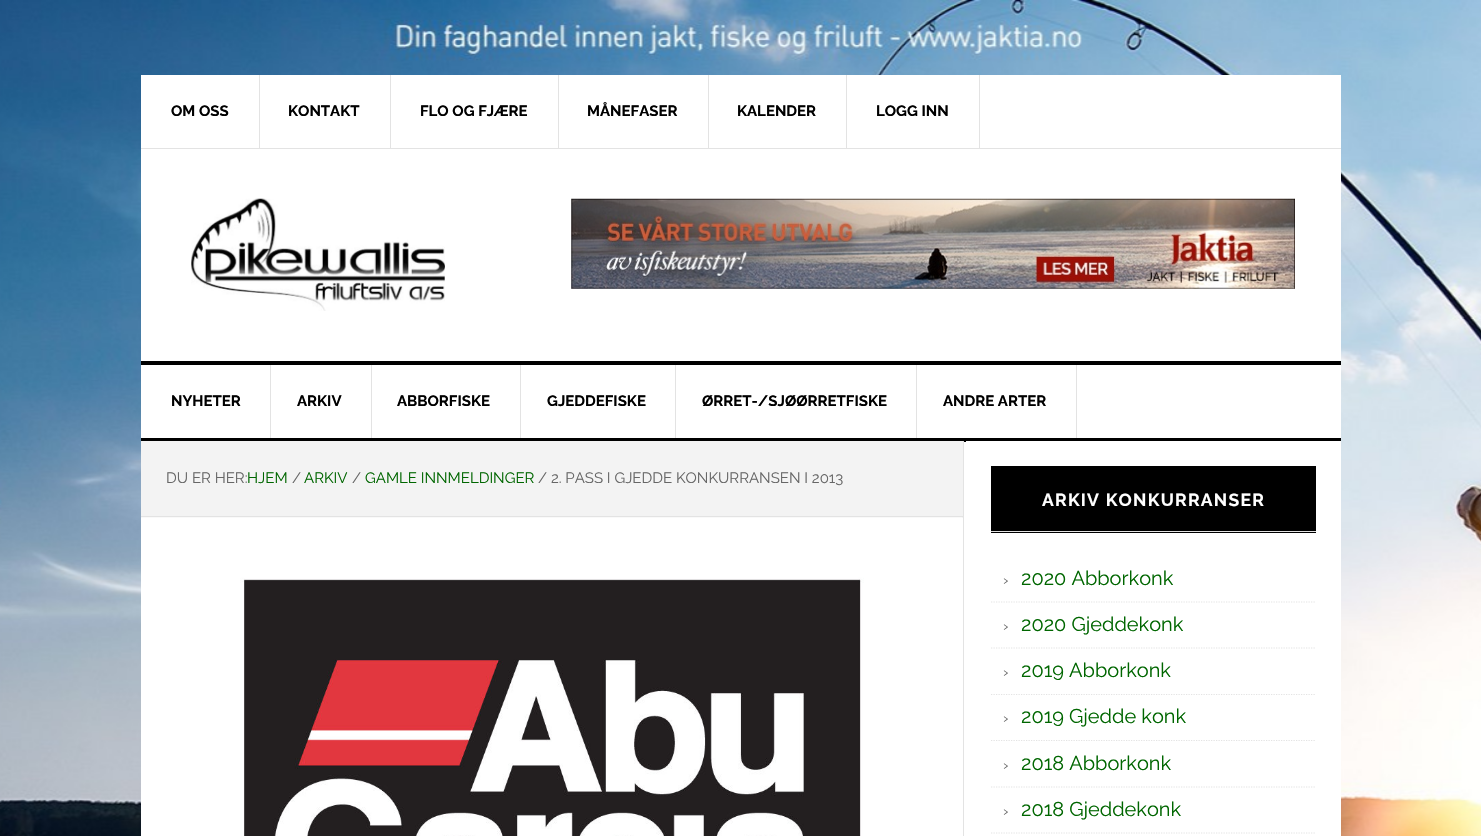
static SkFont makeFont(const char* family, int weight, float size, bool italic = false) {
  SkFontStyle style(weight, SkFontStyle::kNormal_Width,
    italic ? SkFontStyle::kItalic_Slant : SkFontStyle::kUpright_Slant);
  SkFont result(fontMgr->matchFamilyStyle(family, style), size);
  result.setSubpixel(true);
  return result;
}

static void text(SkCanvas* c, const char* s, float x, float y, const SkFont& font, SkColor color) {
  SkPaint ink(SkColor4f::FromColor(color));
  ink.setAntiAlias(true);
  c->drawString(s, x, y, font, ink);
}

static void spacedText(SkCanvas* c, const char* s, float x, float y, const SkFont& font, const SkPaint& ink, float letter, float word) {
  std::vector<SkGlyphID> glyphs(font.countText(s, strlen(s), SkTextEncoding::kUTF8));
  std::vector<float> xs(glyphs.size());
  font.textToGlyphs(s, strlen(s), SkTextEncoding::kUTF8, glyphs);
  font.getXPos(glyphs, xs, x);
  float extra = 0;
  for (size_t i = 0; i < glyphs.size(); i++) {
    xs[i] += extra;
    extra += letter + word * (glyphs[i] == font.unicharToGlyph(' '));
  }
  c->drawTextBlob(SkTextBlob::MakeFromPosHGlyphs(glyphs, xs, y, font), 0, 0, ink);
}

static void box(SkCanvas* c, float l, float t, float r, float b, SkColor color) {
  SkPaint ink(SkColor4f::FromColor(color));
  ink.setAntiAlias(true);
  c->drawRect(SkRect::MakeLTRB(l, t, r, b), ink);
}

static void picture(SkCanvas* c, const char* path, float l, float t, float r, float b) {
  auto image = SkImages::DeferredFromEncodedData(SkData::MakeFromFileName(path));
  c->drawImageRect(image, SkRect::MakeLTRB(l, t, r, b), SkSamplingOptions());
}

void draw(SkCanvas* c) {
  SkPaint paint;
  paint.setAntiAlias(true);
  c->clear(0xffffffff);
  picture(c, "img_01.png", 0, 0, 1481, 836);
  box(c, 141, 75, 1341, 836, 0xffffffff);
  box(c, 141, 148, 1341, 149, 0xffe3e3e3);
  box(c, 259, 75, 260, 148, 0xffe3e3e3);
  SkFont face1 = makeFont("Raleway", 700, 15);
  text(c, "OM OSS", 171, 116, face1, 0xff000000);
  box(c, 390, 75, 391, 148, 0xffe3e3e3);
  text(c, "KONTAKT", 288, 116, face1, 0xff000000);
  box(c, 558, 75, 559, 148, 0xffe3e3e3);
  text(c, "FLO OG FJÆRE", 420, 116, face1, 0xff000000);
  box(c, 708, 75, 709, 148, 0xffe3e3e3);
  text(c, "MÅNEFASER", 587, 116, face1, 0xff000000);
  box(c, 846, 75, 847, 148, 0xffe3e3e3);
  text(c, "KALENDER", 737, 116, face1, 0xff000000);
  box(c, 979, 75, 980, 148, 0xffe3e3e3);
  text(c, "LOGG INN", 876, 116, face1, 0xff000000);
  box(c, 141, 361, 1341, 365, 0xff000000);
  picture(c, "img_02.png", 191, 198, 445, 311);
  picture(c, "img_03.png", 571, 198, 1295, 289);
  box(c, 141, 438, 1341, 442, 0xff000000);
  box(c, 270, 365, 271, 438, 0xffe3e3e3);
  text(c, "NYHETER", 171, 406, face1, 0xff000000);
  box(c, 371, 365, 372, 438, 0xffe3e3e3);
  text(c, "ARKIV", 297, 406, face1, 0xff000000);
  box(c, 520, 365, 521, 438, 0xffe3e3e3);
  text(c, "ABBORFISKE", 397, 406, face1, 0xff000000);
  box(c, 675, 365, 676, 438, 0xffe3e3e3);
  text(c, "GJEDDEFISKE", 547, 406, face1, 0xff000000);
  box(c, 916, 365, 917, 438, 0xffe3e3e3);
  text(c, "ØRRET-/SJØØRRETFISKE", 702, 406, face1, 0xff000000);
  box(c, 1076, 365, 1077, 438, 0xffe3e3e3);
  text(c, "ANDRE ARTER", 943, 406, face1, 0xff000000);
  box(c, 963, 441, 964, 836, 0xffe3e3e3);
  box(c, 141, 441, 963, 518, 0xfff3f3f3);
  box(c, 141, 516, 963, 517, 0xffe3e3e3);
  SkFont face2 = makeFont("Raleway", 400, 15);
  text(c, "DU ER HER:", 166, 483, face2, 0xff666666);
  text(c, "HJEM", 247, 483, face2, 0xff006600);
  text(c, "/", 292, 483, face2, 0xff666666);
  text(c, "ARKIV", 304, 483, face2, 0xff006600);
  text(c, "/", 352, 483, face2, 0xff666666);
  text(c, "GAMLE INNMELDINGER", 365, 483, face2, 0xff006600);
  text(c, "/ 2. PASS I GJEDDE KONKURRANSEN I 2013", 538, 483, face2, 0xff666666);
  picture(c, "img_04.png", 141, 517, 962, 836);
  box(c, 966, 441, 1341, 442, 0xffffffff);
  box(c, 991, 466, 1316, 533, 0xff000000);
  box(c, 991, 531, 1316, 532, 0xffe3e3e3);
  SkFont face3 = makeFont("Raleway", 700, 17.5f);
  paint.setColor(0xffffffff);
  spacedText(c, "ARKIV KONKURRANSER", 1042, 506, face3, paint, 1.25f, 0);
  paint.setStyle(SkPaint::kStroke_Style);
  paint.setStrokeWidth(1.2f);
  paint.setColor(0xffe3e3e3);
  paint.setPathEffect(SkDashPathEffect::Make({{1.25f, 1.25f}}, 0));
  c->drawPath(SkPathBuilder().moveTo(991, 602).lineTo(1316, 602).detach(), paint);
  paint.setPathEffect(nullptr);
  text(c, "›", 1003, 585, face2, 0xff666666);
  SkFont face4 = makeFont("Raleway", 400, 20);
  text(c, "2020 Abborkonk", 1021, 585, face4, 0xff006600);
  paint.setPathEffect(SkDashPathEffect::Make({{1.25f, 1.25f}}, 0));
  c->drawPath(SkPathBuilder().moveTo(991, 648).lineTo(1316, 648).detach(), paint);
  paint.setPathEffect(nullptr);
  text(c, "›", 1003, 631, face2, 0xff666666);
  text(c, "2020 Gjeddekonk", 1021, 631, face4, 0xff006600);
  paint.setPathEffect(SkDashPathEffect::Make({{1.25f, 1.25f}}, 0));
  c->drawPath(SkPathBuilder().moveTo(991, 694.5f).lineTo(1316, 694.5f).detach(), paint);
  paint.setPathEffect(nullptr);
  text(c, "›", 1003, 677, face2, 0xff666666);
  text(c, "2019 Abborkonk", 1021, 677, face4, 0xff006600);
  paint.setPathEffect(SkDashPathEffect::Make({{1.25f, 1.25f}}, 0));
  c->drawPath(SkPathBuilder().moveTo(991, 740.5f).lineTo(1316, 740.5f).detach(), paint);
  paint.setPathEffect(nullptr);
  text(c, "›", 1003, 723, face2, 0xff666666);
  text(c, "2019 Gjedde konk", 1021, 723, face4, 0xff006600);
  paint.setPathEffect(SkDashPathEffect::Make({{1.25f, 1.25f}}, 0));
  c->drawPath(SkPathBuilder().moveTo(991, 787).lineTo(1316, 787).detach(), paint);
  paint.setPathEffect(nullptr);
  text(c, "›", 1003, 770, face2, 0xff666666);
  text(c, "2018 Abborkonk", 1021, 770, face4, 0xff006600);
  paint.setPathEffect(SkDashPathEffect::Make({{1.25f, 1.25f}}, 0));
  c->drawPath(SkPathBuilder().moveTo(991, 833).lineTo(1316, 833).detach(), paint);
  paint.setPathEffect(nullptr);
  text(c, "›", 1003, 816, face2, 0xff666666);
  text(c, "2018 Gjeddekonk", 1021, 816, face4, 0xff006600);
}
